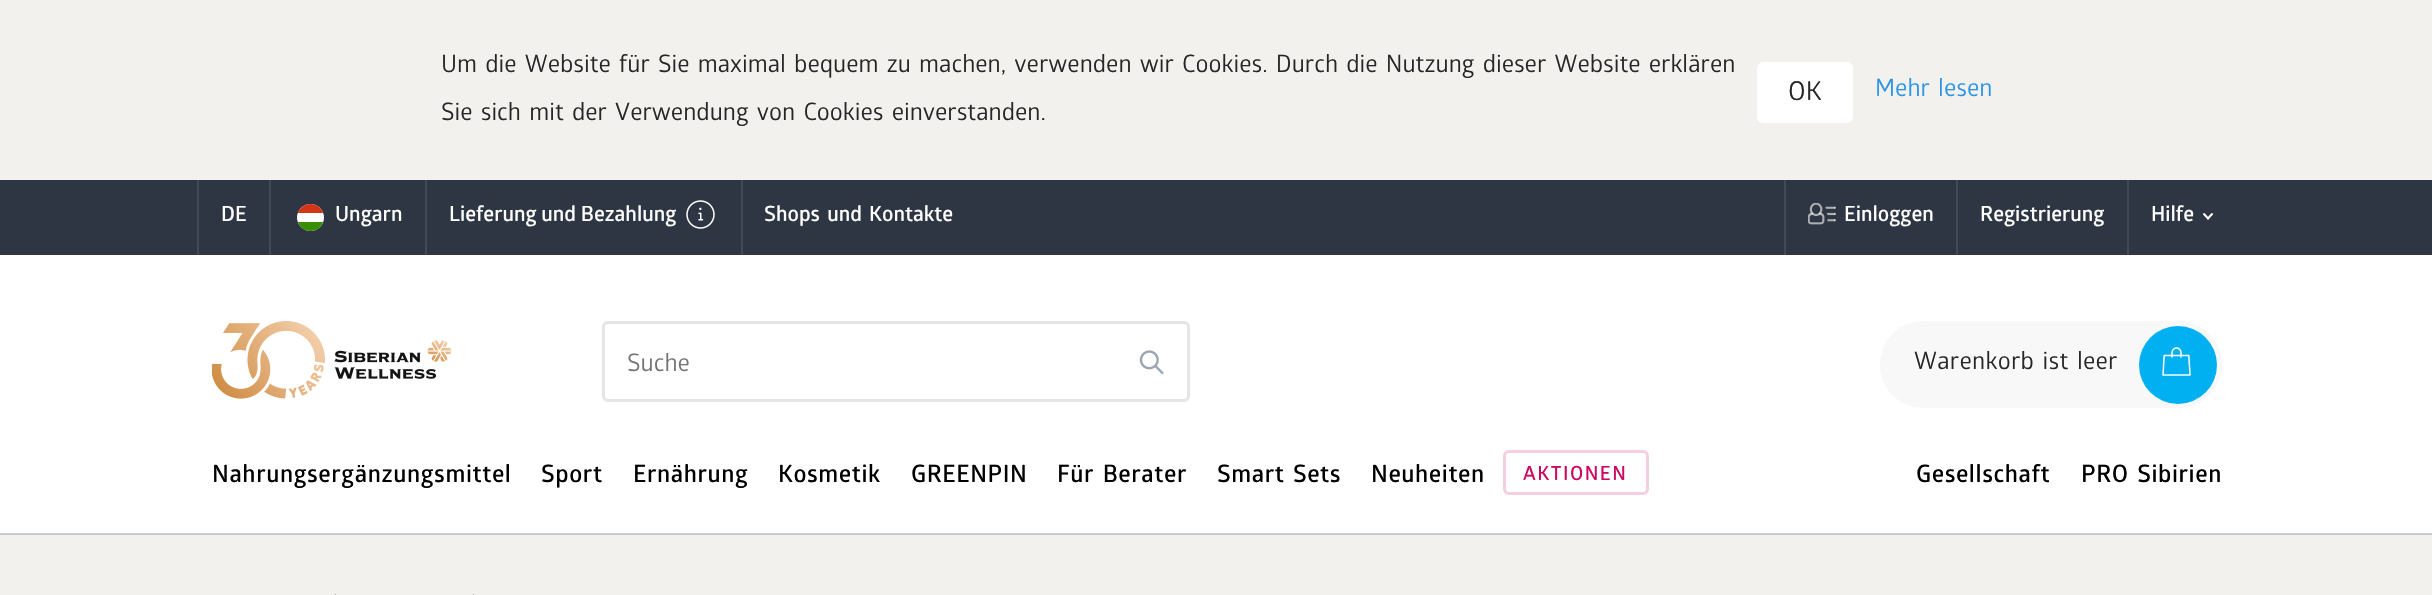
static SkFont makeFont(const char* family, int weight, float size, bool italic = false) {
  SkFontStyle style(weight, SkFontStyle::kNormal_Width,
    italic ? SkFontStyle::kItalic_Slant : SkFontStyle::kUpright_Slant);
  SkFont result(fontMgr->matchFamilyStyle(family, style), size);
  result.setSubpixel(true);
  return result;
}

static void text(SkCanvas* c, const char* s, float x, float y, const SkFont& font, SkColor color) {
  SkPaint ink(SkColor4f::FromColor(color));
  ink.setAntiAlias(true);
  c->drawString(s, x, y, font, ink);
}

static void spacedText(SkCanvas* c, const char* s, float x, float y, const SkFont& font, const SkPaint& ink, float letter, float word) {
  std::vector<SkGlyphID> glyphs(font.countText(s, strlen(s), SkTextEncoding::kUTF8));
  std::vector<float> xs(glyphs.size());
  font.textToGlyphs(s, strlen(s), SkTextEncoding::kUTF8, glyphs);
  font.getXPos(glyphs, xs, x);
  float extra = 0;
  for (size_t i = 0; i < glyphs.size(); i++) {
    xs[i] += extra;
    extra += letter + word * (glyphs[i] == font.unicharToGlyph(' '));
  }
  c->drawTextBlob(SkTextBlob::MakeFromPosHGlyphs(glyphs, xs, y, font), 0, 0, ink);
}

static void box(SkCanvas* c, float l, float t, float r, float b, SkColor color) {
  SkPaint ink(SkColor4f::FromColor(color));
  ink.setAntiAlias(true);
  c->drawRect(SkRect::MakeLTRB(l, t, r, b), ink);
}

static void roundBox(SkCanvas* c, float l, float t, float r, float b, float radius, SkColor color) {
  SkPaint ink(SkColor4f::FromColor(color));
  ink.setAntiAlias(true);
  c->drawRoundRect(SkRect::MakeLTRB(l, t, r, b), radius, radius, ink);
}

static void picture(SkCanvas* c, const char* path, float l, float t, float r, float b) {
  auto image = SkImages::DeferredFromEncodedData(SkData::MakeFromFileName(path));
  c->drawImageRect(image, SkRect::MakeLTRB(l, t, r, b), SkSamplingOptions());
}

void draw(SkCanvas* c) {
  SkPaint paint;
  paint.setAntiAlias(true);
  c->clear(0xfff3f1ed);
  SkFont face1 = makeFont("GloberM", 400, 24);
  paint.setColor(0xff272727);
  spacedText(c, "Um die Website für Sie maximal bequem zu machen, verwenden wir Cookies. Durch die Nutzung dieser Website erklären", 441, 72, face1, paint, 0, 2.5f);
  spacedText(c, "Sie sich mit der Verwendung von Cookies einverstanden.", 441, 120, face1, paint, 0, 2.5f);
  roundBox(c, 1757, 62, 1853, 123, 6, 0xffffffff);
  SkFont face2 = makeFont("GloberM", 400, 26);
  text(c, "OK", 1788, 100, face2, 0xff272727);
  paint.setColor(0xff2a94e5);
  spacedText(c, "Mehr lesen", 1875, 96, face1, paint, 0, 2.5f);
  box(c, 0, 180, 2432, 255, 0xff2f3643);
  box(c, 197, 180, 199, 255, 0xff424854);
  SkFont face3 = makeFont("GloberM", 600, 21);
  text(c, "DE", 221, 221, face3, 0xffffffff);
  box(c, 269, 180, 271, 255, 0xff424854);
  paint.setColor(0xffffffff);
  c->drawCircle(310.5f, 217.5f, 13.5f, paint);
  c->save();
  c->clipPath(SkPathBuilder().moveTo(310.5f, 204).cubicTo(318, 204, 324, 210, 324, 217.5f).cubicTo(324, 225, 318, 231, 310.5f, 231).cubicTo(303, 231, 297, 225, 297, 217.5f).cubicTo(297, 210, 303, 204, 310.5f, 204).close().detach(), true);
  box(c, 297, 222, 324, 231, 0xff388d00);
  box(c, 297, 204, 324, 213, 0xffd43516);
  c->restore();
  text(c, "Ungarn", 335, 221, face3, 0xffffffff);
  box(c, 425, 180, 427, 255, 0xff424854);
  text(c, "Lieferung und Bezahlung", 449, 221, face3, 0xffffffff);
  picture(c, "img_01.png", 686, 200, 715, 229);
  box(c, 741, 180, 743, 255, 0xff424854);
  spacedText(c, "Shops und Kontakte", 764, 221, face3, paint, 0, 2.5f);
  box(c, 1784, 180, 1786, 255, 0xff424854);
  picture(c, "img_02.png", 1808, 203, 1836, 225);
  text(c, "Einloggen", 1844, 221, face3, 0xffffffff);
  box(c, 1956, 180, 1958, 255, 0xff424854);
  text(c, "Registrierung", 1980, 221, face3, 0xffffffff);
  box(c, 2127, 180, 2129, 255, 0xff424854);
  text(c, "Hilfe", 2151, 221, face3, 0xffffffff);
  picture(c, "img_03.png", 2203, 213, 2213, 220);
  box(c, 0, 255, 2432, 534, 0xffffffff);
  box(c, 0, 533, 2432, 535, 0x8098a2ae);
  picture(c, "img_04.png", 212, 321, 452, 399);
  paint.setStyle(SkPaint::kStroke_Style);
  paint.setStrokeWidth(3);
  paint.setColor(0xffe5e5e5);
  c->drawRoundRect(SkRect::MakeLTRB(603.5f, 322.5f, 1188.5f, 400.5f), 4.5f, 4.5f, paint);
  text(c, "Suche", 627, 371, face1, 0xff757575);
  picture(c, "img_05.png", 1139, 350, 1164, 375);
  roundBox(c, 1880, 321, 2222, 408, 43.5f, 0xfff8f8f8);
  paint.setStyle(SkPaint::kFill_Style);
  paint.setColor(0xff272727);
  spacedText(c, "Warenkorb ist leer", 1914, 369, face1, paint, 0.25f, 2.5f);
  paint.setColor(0xff00b0f0);
  c->drawCircle(2178, 365, 39, paint);
  picture(c, "img_06.png", 2162, 347, 2191, 376);
  SkFont face4 = makeFont("GloberM", 600, 24);
  paint.setColor(0xff000000);
  spacedText(c, "Nahrungsergänzungsmittel", 212, 482, face4, paint, 0.6f, 0);
  spacedText(c, "Sport", 541, 482, face4, paint, 0.6f, 0);
  spacedText(c, "Ernährung", 633, 482, face4, paint, 0.6f, 0);
  spacedText(c, "Kosmetik", 778, 482, face4, paint, 0.6f, 0);
  spacedText(c, "GREENPIN", 911, 482, face4, paint, 0.6f, 0);
  spacedText(c, "Für Berater", 1057, 482, face4, paint, 0.6f, 2.5f);
  spacedText(c, "Smart Sets", 1217, 482, face4, paint, 0.6f, 2.5f);
  spacedText(c, "Neuheiten", 1371, 482, face4, paint, 0.6f, 0);
  paint.setStyle(SkPaint::kStroke_Style);
  paint.setColor(0xfff5cee0);
  c->drawRoundRect(SkRect::MakeLTRB(1504.5f, 451.5f, 1647.5f, 493.5f), 4.5f, 4.5f, paint);
  SkFont face5 = makeFont("GloberM", 600, 19.5f);
  paint.setStyle(SkPaint::kFill_Style);
  paint.setColor(0xffcc0862);
  spacedText(c, "AKTIONEN", 1523, 480, face5, paint, 1.5f, 0);
  paint.setColor(0xff000000);
  spacedText(c, "Gesellschaft", 1916, 482, face4, paint, 0.6f, 0);
  spacedText(c, "PRO Sibirien", 2081, 482, face4, paint, 0.6f, 2.5f);
  box(c, 335, 594, 336, 595, 0xffaaa9a6);
  box(c, 473, 594, 474, 595, 0xffaaa9a6);
}
